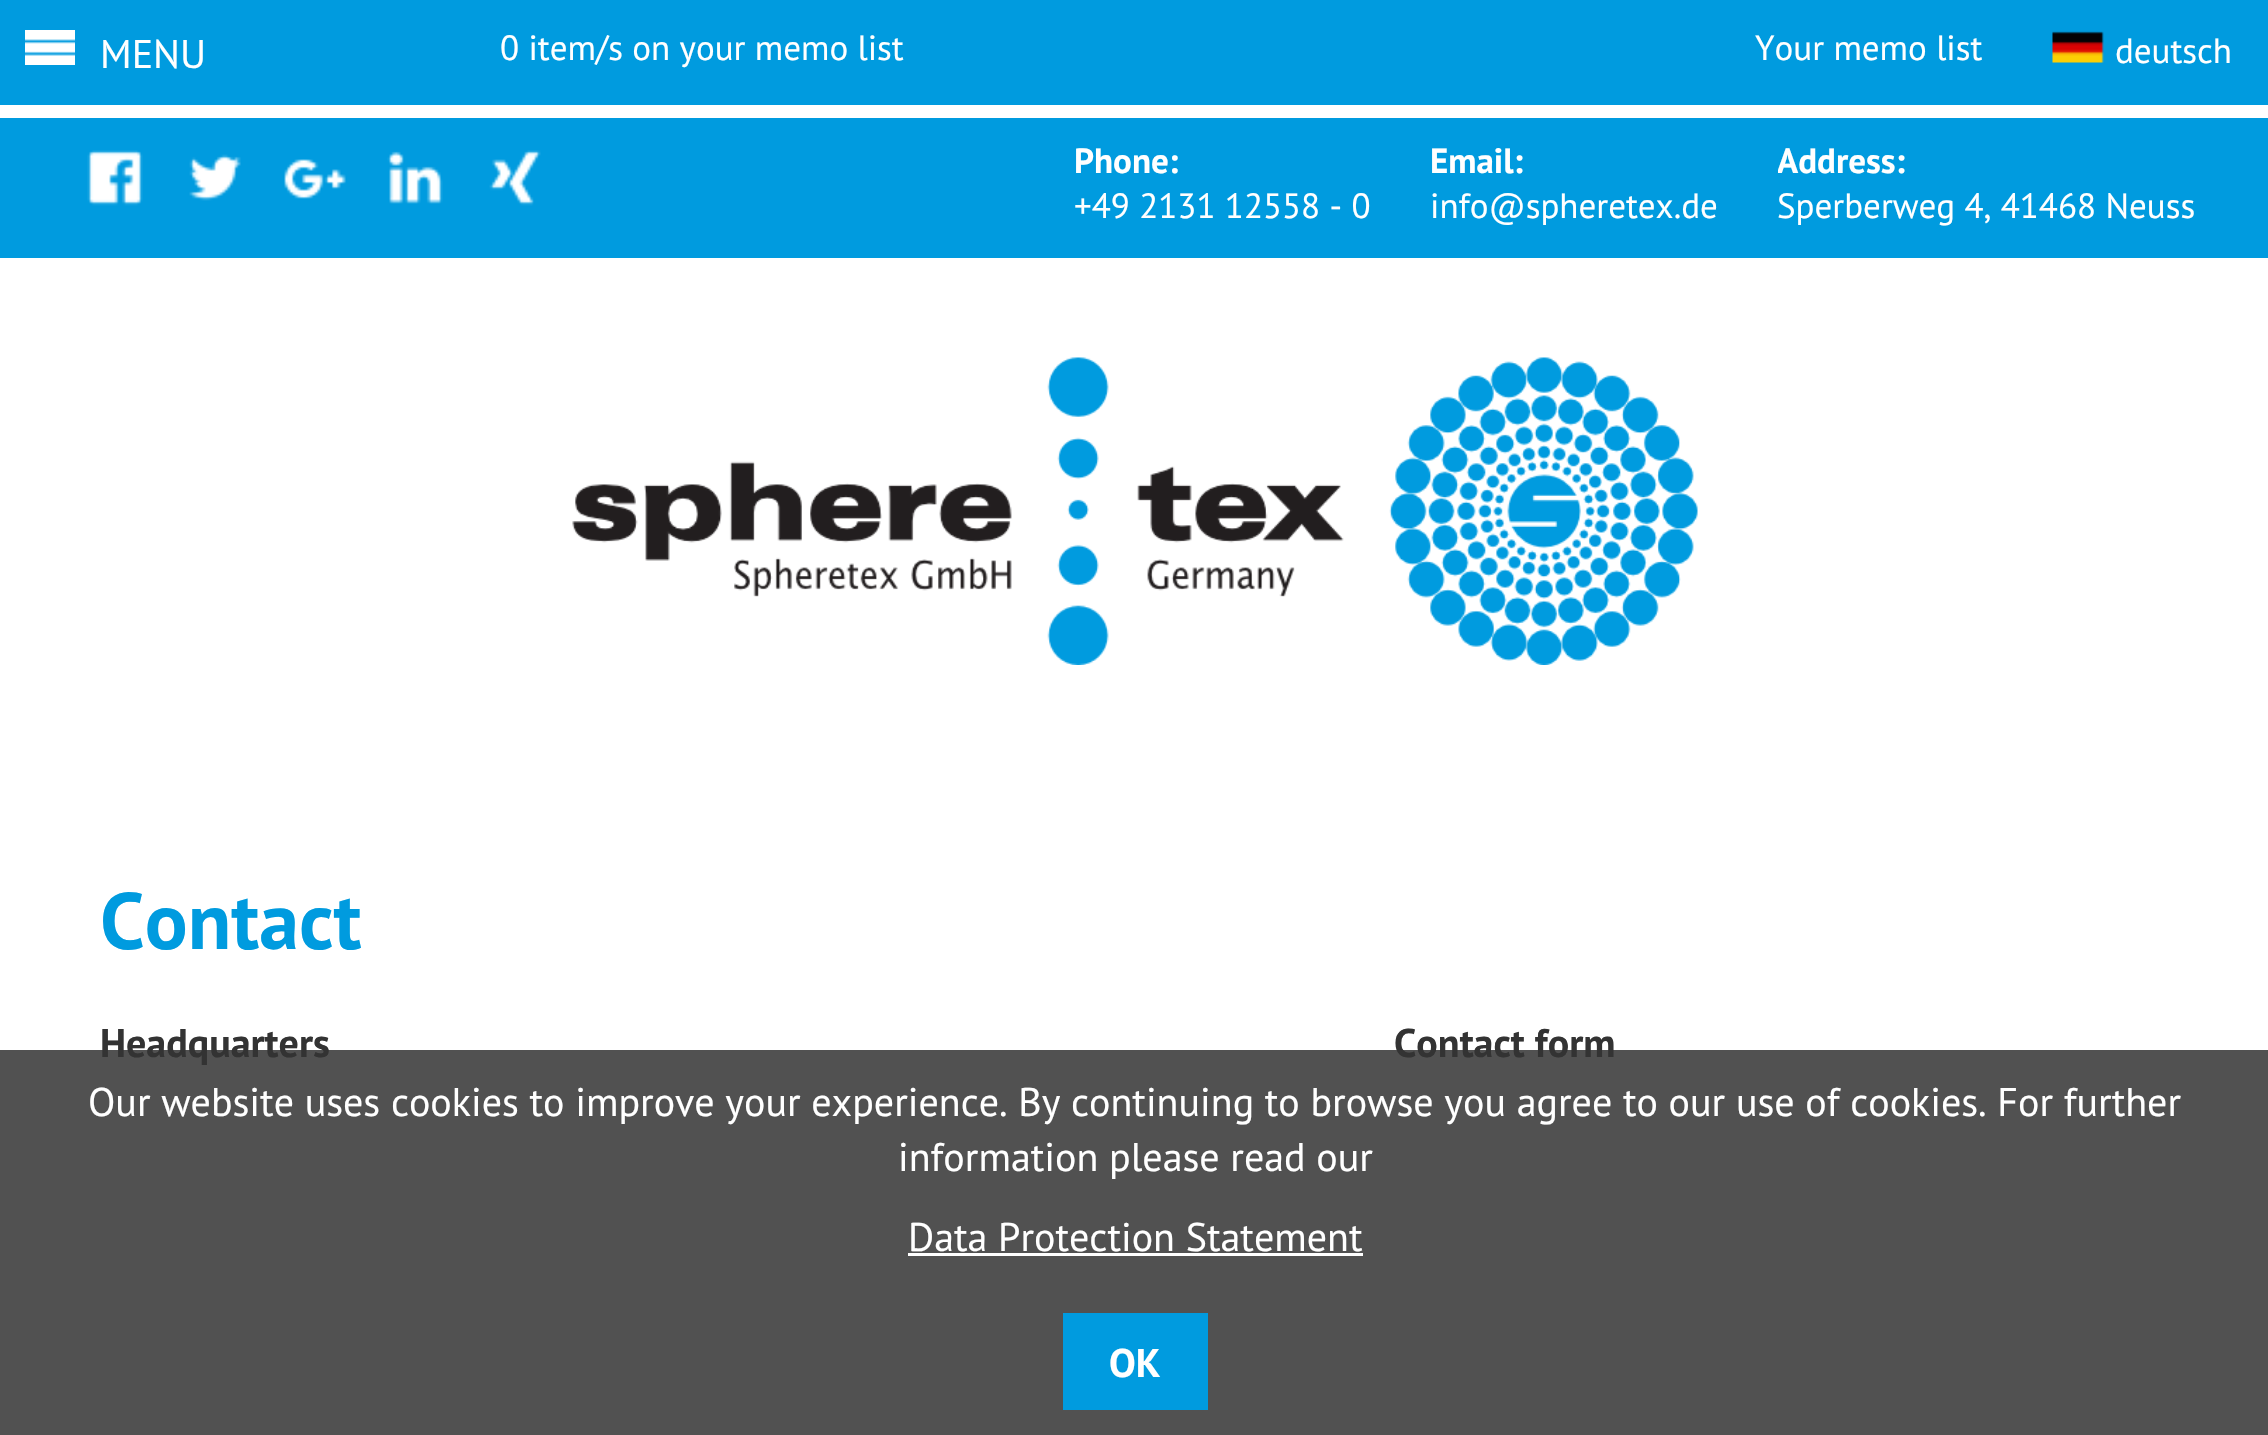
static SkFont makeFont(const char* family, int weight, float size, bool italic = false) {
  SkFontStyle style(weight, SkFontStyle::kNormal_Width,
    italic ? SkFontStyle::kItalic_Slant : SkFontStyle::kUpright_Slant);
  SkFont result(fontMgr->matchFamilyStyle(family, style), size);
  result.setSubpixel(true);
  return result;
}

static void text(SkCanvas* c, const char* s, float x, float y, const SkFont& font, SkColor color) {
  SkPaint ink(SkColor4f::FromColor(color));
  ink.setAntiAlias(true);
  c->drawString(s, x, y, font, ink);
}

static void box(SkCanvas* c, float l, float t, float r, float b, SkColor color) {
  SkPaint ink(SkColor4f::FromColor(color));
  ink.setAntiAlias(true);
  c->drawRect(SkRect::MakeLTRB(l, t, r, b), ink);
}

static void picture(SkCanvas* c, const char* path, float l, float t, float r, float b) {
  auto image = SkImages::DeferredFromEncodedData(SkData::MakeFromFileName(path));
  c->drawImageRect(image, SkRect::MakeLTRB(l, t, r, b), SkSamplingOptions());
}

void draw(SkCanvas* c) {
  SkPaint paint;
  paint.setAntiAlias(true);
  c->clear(0xff009bdf);
  SkFont face1 = makeFont("PT Sans", 400, 35);
  text(c, "0 item/s on your memo list", 500, 60, face1, 0xffffffff);
  picture(c, "img_01.png", 87, 150, 143, 206);
  picture(c, "img_02.png", 189, 154, 241, 201);
  picture(c, "img_03.png", 284, 159, 346, 199);
  picture(c, "img_04.png", 387, 151, 443, 204);
  picture(c, "img_05.png", 489, 150, 541, 206);
  text(c, "Your memo list", 1755, 60, face1, 0xffffffff);
  SkFont face2 = makeFont("PT Sans", 700, 35);
  text(c, "Phone:", 1074, 173, face2, 0xffffffff);
  text(c, "+49 2131 12558 - 0", 1074, 218, face1, 0xffffffff);
  text(c, "Email:", 1430, 173, face2, 0xffffffff);
  text(c, "info@spheretex.de", 1430, 218, face1, 0xffffffff);
  c->save();
  c->clipRect(SkRect::MakeLTRB(1778, 138, 2195, 258));
  text(c, "Address:", 1777, 173, face2, 0xffffffff);
  c->restore();
  text(c, "Sperberweg 4, 41468 Neuss", 1777, 218, face1, 0xffffffff);
  picture(c, "img_06.png", 2052, 31, 2104, 63);
  text(c, "deutsch", 2115, 63, face1, 0xffffffff);
  box(c, 0, 258, 2268, 1435, 0xffffffff);
  box(c, 0, 105, 2268, 118, 0xffffffff);
  picture(c, "img_07.png", 25, 30, 75, 65);
  SkFont face3 = makeFont("PT Sans", 400, 40);
  text(c, "MENU", 100, 68, face3, 0xffffffff);
  picture(c, "img_08.png", 572, 357, 1698, 665);
  SkFont face4 = makeFont("PT Sans", 700, 80);
  text(c, "Contact", 100, 949, face4, 0xff009bdf);
  SkFont face5 = makeFont("PT Sans", 700, 40);
  text(c, "Headquarters", 100, 1057, face5, 0xff333333);
  text(c, "Contact form", 1394, 1057, face5, 0xff333333);
  box(c, 0, 1050, 2268, 1435, 0xd9323232);
  text(c, "Our website uses cookies to improve your experience. By continuing to browse you agree to our use of cookies. For further", 88, 1116, face3, 0xffffffff);
  text(c, "information please read our", 898, 1171, face3, 0xffffffff);
  text(c, "Data Protection Statement", 908, 1251, face3, 0xffffffff);
  box(c, 908, 1253, 1363, 1256, 0xffffffff);
  box(c, 1063, 1313, 1208, 1410, 0xff009bdf);
  text(c, "OK", 1109, 1377, face5, 0xffffffff);
}
